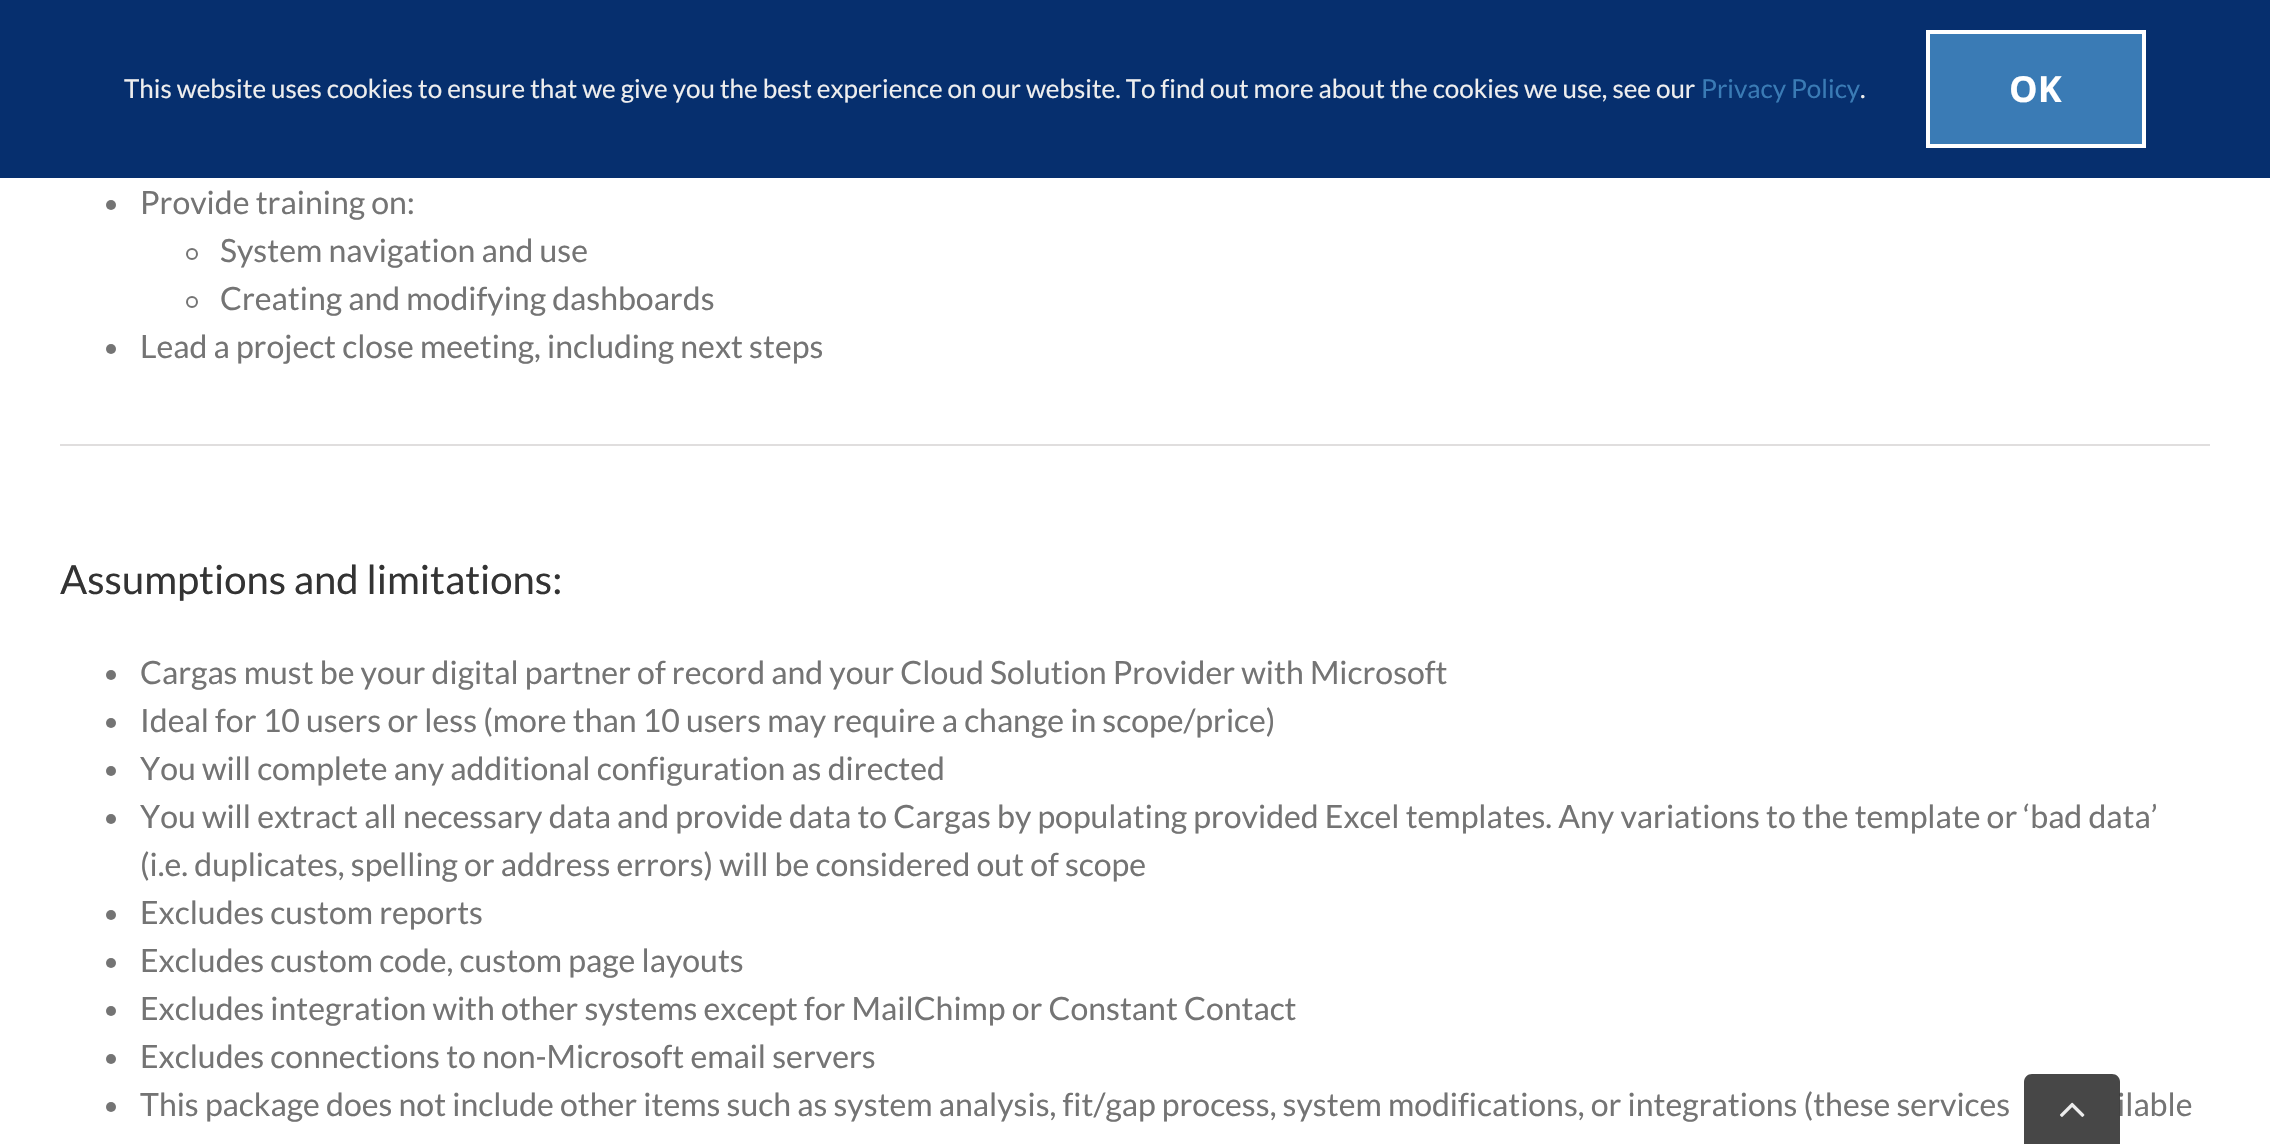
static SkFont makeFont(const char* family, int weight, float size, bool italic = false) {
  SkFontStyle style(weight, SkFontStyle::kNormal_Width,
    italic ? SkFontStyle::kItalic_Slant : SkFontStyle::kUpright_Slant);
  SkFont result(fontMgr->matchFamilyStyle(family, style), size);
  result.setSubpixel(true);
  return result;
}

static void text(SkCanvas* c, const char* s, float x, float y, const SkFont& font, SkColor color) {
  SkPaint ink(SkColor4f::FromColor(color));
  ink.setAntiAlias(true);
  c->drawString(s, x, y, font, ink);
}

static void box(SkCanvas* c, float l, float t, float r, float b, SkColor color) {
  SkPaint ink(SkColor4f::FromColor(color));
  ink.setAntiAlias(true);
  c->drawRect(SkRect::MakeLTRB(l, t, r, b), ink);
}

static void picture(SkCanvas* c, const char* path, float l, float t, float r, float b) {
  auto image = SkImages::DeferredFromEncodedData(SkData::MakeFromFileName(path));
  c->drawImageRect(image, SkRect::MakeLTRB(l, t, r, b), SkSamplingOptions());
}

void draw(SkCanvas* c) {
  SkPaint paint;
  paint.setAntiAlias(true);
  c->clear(0xffffffff);
  box(c, 0, 0, 2270, 178, 0xff062f6e);
  SkFont face1 = makeFont("Lato", 400, 26);
  text(c, "This website uses cookies to ensure that we give you the best experience on our website. To find out more about the cookies we use, see our", 124, 98, face1, 0xffeeeeee);
  text(c, "Privacy Policy", 1701, 98, face1, 0xff3a7bb5);
  text(c, ".", 1860, 98, face1, 0xffeeeeee);
  paint.setColor(0xff3a7bb5);
  c->drawRect(SkRect::MakeLTRB(1928, 32, 2144, 146), paint);
  paint.setStyle(SkPaint::kStroke_Style);
  paint.setStrokeWidth(4);
  paint.setColor(0xffffffff);
  c->drawRect(SkRect::MakeLTRB(1928, 32, 2144, 146), paint);
  SkFont face2 = makeFont("Open Sans", 700, 36);
  text(c, "OK", 2009, 102, face2, 0xffffffff);
  paint.setStyle(SkPaint::kFill_Style);
  paint.setColor(0xff747474);
  c->drawCircle(111, 205, 5, paint);
  SkFont face3 = makeFont("Lato", 400, 32);
  text(c, "Provide training on:", 140, 214, face3, 0xff747474);
  paint.setStyle(SkPaint::kStroke_Style);
  paint.setStrokeWidth(2);
  c->drawCircle(192, 254, 5, paint);
  text(c, "System navigation and use", 220, 262, face3, 0xff747474);
  c->drawCircle(192, 302, 5, paint);
  text(c, "Creating and modifying dashboards", 220, 310, face3, 0xff747474);
  paint.setStyle(SkPaint::kFill_Style);
  c->drawCircle(111, 349, 5, paint);
  text(c, "Lead a project close meeting, including next steps", 140, 358, face3, 0xff747474);
  box(c, 60, 444, 2210, 446, 0xffe0dede);
  SkFont face4 = makeFont("Lato", 400, 40);
  text(c, "Assumptions and limitations:", 60, 594, face4, 0xff333333);
  c->drawCircle(111, 675, 5, paint);
  text(c, "Cargas must be your digital partner of record and your Cloud Solution Provider with Microsoft", 140, 684, face3, 0xff747474);
  c->drawCircle(111, 723, 5, paint);
  text(c, "Ideal for 10 users or less (more than 10 users may require a change in scope/price)", 140, 732, face3, 0xff747474);
  c->drawCircle(111, 771, 5, paint);
  text(c, "You will complete any additional configuration as directed", 140, 780, face3, 0xff747474);
  c->drawCircle(111, 819, 5, paint);
  text(c, "You will extract all necessary data and provide data to Cargas by populating provided Excel templates. Any variations to the template or ‘bad data’", 140, 828, face3, 0xff747474);
  text(c, "(i.e. duplicates, spelling or address errors) will be considered out of scope", 140, 876, face3, 0xff747474);
  c->drawCircle(111, 915, 5, paint);
  text(c, "Excludes custom reports", 140, 924, face3, 0xff747474);
  c->drawCircle(111, 963, 5, paint);
  text(c, "Excludes custom code, custom page layouts", 140, 972, face3, 0xff747474);
  c->drawCircle(111, 1011, 5, paint);
  text(c, "Excludes integration with other systems except for MailChimp or Constant Contact", 140, 1020, face3, 0xff747474);
  c->drawCircle(111, 1059, 5, paint);
  text(c, "Excludes connections to non-Microsoft email servers", 140, 1068, face3, 0xff747474);
  c->drawCircle(111, 1107, 5, paint);
  text(c, "This package does not include other items such as system analysis, fit/gap process, system modifications, or integrations (these services", 140, 1116, face3, 0xff747474);
  text(c, "ilable", 2117, 1116, face3, 0xff747474);
  paint.setColor(0xe6333333);
  c->drawPath(SkPathBuilder().moveTo(2032, 1074).lineTo(2112, 1074).cubicTo(2116.5f, 1074, 2120, 1077.5f, 2120, 1082).lineTo(2120, 1144).lineTo(2024, 1144).lineTo(2024, 1082).cubicTo(2024, 1077.5f, 2027.5f, 1074, 2032, 1074).close().detach(), paint);
  picture(c, "img_01.png", 2060, 1102, 2085, 1117);
}
